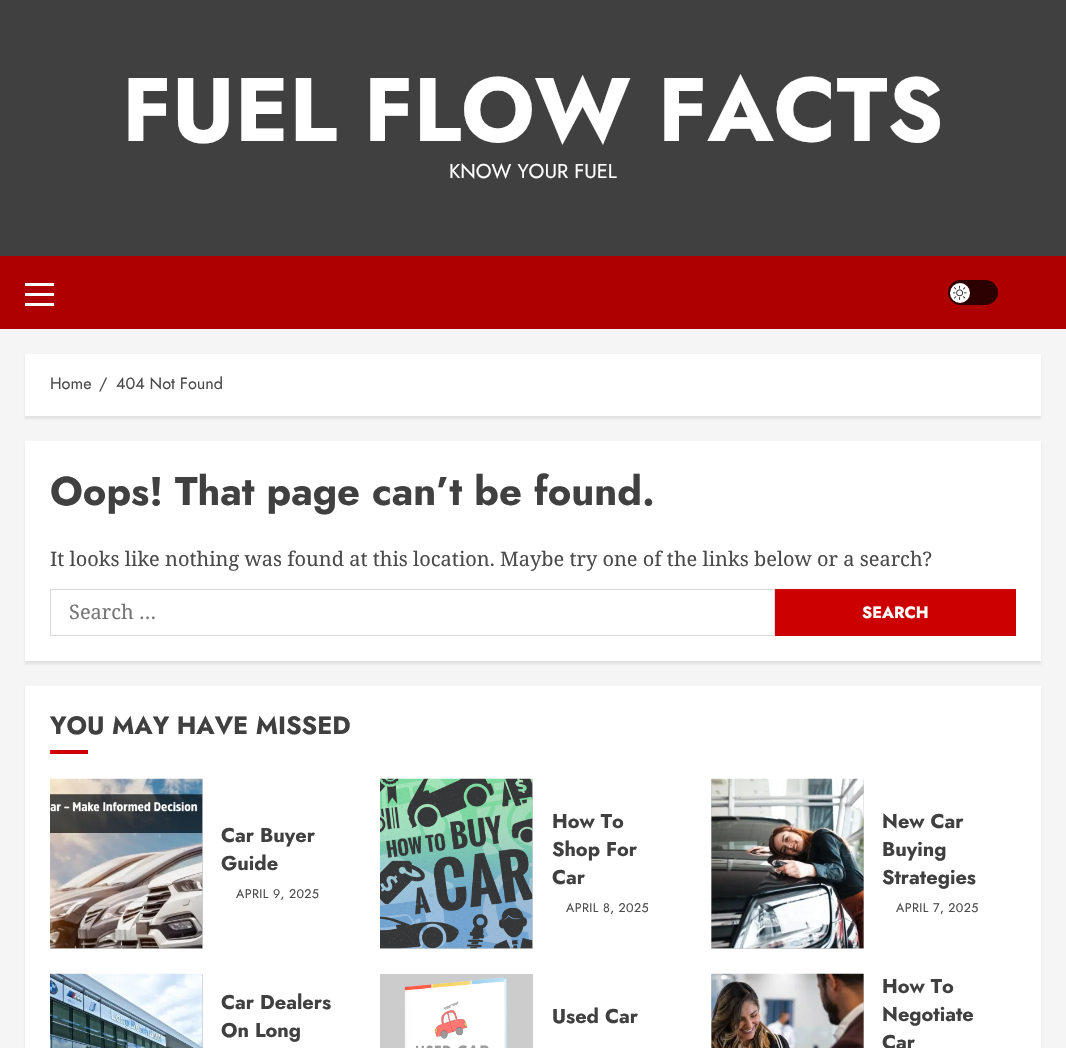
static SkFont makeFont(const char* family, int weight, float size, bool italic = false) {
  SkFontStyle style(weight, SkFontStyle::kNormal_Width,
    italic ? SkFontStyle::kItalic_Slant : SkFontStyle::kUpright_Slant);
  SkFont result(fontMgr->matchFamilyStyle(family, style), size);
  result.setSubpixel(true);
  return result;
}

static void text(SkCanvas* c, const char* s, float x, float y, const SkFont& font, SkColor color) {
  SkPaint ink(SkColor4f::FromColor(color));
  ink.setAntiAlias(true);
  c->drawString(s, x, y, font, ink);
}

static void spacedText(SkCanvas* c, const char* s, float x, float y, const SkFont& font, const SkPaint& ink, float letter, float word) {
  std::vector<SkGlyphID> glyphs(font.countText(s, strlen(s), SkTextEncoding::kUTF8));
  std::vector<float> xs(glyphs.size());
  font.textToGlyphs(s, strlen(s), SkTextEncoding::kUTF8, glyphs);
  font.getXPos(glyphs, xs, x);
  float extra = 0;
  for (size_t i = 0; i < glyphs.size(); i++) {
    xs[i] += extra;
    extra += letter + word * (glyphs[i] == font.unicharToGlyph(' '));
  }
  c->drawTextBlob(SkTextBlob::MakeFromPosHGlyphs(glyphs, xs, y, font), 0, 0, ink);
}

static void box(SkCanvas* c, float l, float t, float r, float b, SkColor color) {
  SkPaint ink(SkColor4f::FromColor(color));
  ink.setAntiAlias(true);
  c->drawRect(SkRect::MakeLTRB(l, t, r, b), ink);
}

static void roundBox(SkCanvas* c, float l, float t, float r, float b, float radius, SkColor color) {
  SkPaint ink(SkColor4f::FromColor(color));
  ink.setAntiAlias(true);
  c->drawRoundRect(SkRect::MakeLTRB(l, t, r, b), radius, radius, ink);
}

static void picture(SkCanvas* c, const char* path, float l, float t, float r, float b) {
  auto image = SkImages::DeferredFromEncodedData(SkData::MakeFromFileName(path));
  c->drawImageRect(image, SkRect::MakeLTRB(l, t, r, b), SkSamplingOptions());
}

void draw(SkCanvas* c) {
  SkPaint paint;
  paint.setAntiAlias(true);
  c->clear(0xfff5f5f5);
  box(c, 0, 0, 1066, 256, 0xff404040);
  SkFont face1 = makeFont("Jost", 700, 90);
  text(c, "FUEL FLOW FACTS", 122, 141, face1, 0xffffffff);
  SkFont face2 = makeFont("Jost", 400, 20);
  text(c, "KNOW YOUR FUEL", 449, 178, face2, 0xffffffff);
  box(c, 0, 256, 1066, 329, 0xffaf0000);
  box(c, 25, 293, 54, 296, 0xffffffff);
  box(c, 25, 283, 54, 286, 0xffffffff);
  box(c, 25, 303, 54, 306, 0xffffffff);
  roundBox(c, 948, 280, 998, 305, 12.5f, 0xff2c0000);
  paint.setColor(0xffffffff);
  c->drawCircle(960, 293, 10, paint);
  picture(c, "img_01.png", 953, 285, 967, 300);
  paint.setColor(0x14000000);
  paint.setMaskFilter(SkMaskFilter::MakeBlur(kNormal_SkBlurStyle, 1));
  c->drawRect(SkRect::MakeLTRB(25, 356, 1041, 419), paint);
  paint.setMaskFilter(nullptr);
  box(c, 25, 354, 1041, 416, 0xffffffff);
  SkFont face3 = makeFont("Jost", 400, 16.25f);
  text(c, "Home", 50, 389, face3, 0xff4a4a4a);
  text(c, "/", 99, 389, face3, 0xff4a4a4a);
  text(c, "404 Not Found", 116, 389, face3, 0xff4a4a4a);
  paint.setMaskFilter(SkMaskFilter::MakeBlur(kNormal_SkBlurStyle, 1));
  c->drawRect(SkRect::MakeLTRB(25, 444, 1041, 664), paint);
  paint.setMaskFilter(nullptr);
  box(c, 25, 441, 1041, 661, 0xffffffff);
  SkFont face4 = makeFont("Jost", 700, 40);
  text(c, "Oops! That page can’t be found.", 50, 505, face4, 0xff404040);
  SkFont face5 = makeFont("Noto Serif", 400, 20);
  text(c, "It looks like nothing was found at this location. Maybe try one of the links below or a search?", 50, 566, face5, 0xff4a4a4a);
  paint.setStyle(SkPaint::kStroke_Style);
  paint.setStrokeWidth(1);
  paint.setColor(0xffd9d9d9);
  c->drawRect(SkRect::MakeLTRB(50.5f, 589.5f, 774.5f, 635.5f), paint);
  text(c, "Search …", 69, 619, face5, 0xff757575);
  box(c, 775, 589, 1016, 636, 0xffcc0000);
  SkFont face6 = makeFont("Jost", 700, 16.25f);
  text(c, "SEARCH", 862, 618, face6, 0xffffffff);
  paint.setStyle(SkPaint::kFill_Style);
  paint.setColor(0x14000000);
  paint.setMaskFilter(SkMaskFilter::MakeBlur(kNormal_SkBlurStyle, 1));
  c->drawRect(SkRect::MakeLTRB(25, 689, 1041, 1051), paint);
  paint.setMaskFilter(nullptr);
  box(c, 25, 686, 1041, 1048, 0xffffffff);
  SkFont face7 = makeFont("Jost", 700, 25);
  text(c, "YOU MAY HAVE MISSED", 50, 734, face7, 0xff404040);
  box(c, 50, 750, 88, 754, 0xffcc0000);
  box(c, 50, 779, 203, 949, 0xffcccccc);
  picture(c, "img_02.png", 50, 778, 203, 949);
  SkFont face8 = makeFont("Jost", 700, 20);
  text(c, "Car Buyer", 221, 842, face8, 0xff404040);
  text(c, "Guide", 221, 870, face8, 0xff404040);
  SkFont face9 = makeFont("Jost", 400, 12.5f);
  paint.setColor(0xff4a4a4a);
  spacedText(c, "APRIL 9, 2025", 236, 898, face9, paint, 0.4f, 0);
  box(c, 380, 779, 533, 949, 0xffcccccc);
  picture(c, "img_03.png", 380, 778, 533, 949);
  text(c, "How To", 552, 828, face8, 0xff404040);
  text(c, "Shop For", 552, 856, face8, 0xff404040);
  text(c, "Car", 552, 884, face8, 0xff404040);
  spacedText(c, "APRIL 8, 2025", 566, 912, face9, paint, 0.4f, 0);
  box(c, 711, 779, 864, 949, 0xffcccccc);
  picture(c, "img_04.png", 711, 778, 864, 949);
  text(c, "New Car", 882, 828, face8, 0xff404040);
  text(c, "Buying", 882, 856, face8, 0xff404040);
  text(c, "Strategies", 882, 884, face8, 0xff404040);
  spacedText(c, "APRIL 7, 2025", 896, 912, face9, paint, 0.4f, 0);
  box(c, 202, 974, 203, 1048, 0xffcccccc);
  picture(c, "img_05.png", 50, 973, 203, 1048);
  text(c, "Car Dealers", 221, 1009, face8, 0xff404040);
  text(c, "On Long", 221, 1037, face8, 0xff404040);
  box(c, 380, 974, 533, 1048, 0xffcccccc);
  picture(c, "img_06.png", 404, 977, 507, 1048);
  text(c, "Used Car", 552, 1023, face8, 0xff404040);
  box(c, 711, 974, 864, 1048, 0xffcccccc);
  picture(c, "img_07.png", 711, 973, 864, 1048);
  text(c, "How To", 882, 993, face8, 0xff404040);
  text(c, "Negotiate", 882, 1021, face8, 0xff404040);
  text(c, "Car", 882, 1049, face8, 0xff404040);
}
